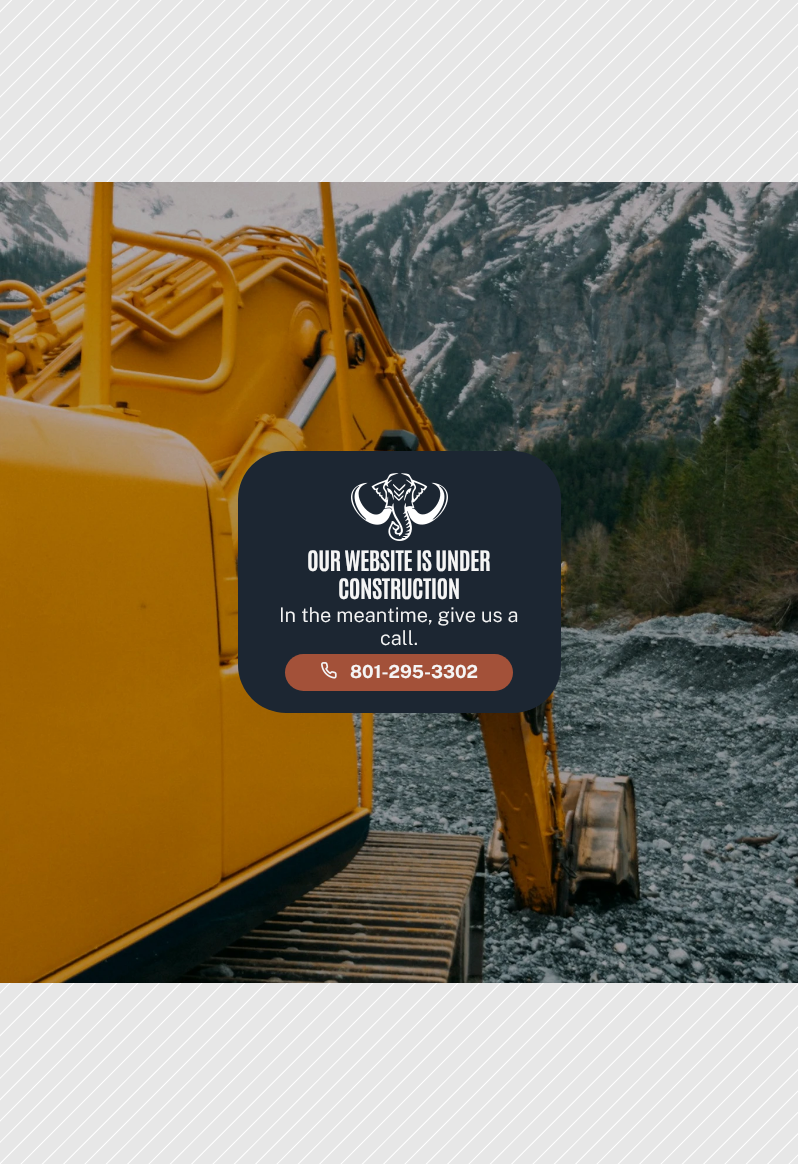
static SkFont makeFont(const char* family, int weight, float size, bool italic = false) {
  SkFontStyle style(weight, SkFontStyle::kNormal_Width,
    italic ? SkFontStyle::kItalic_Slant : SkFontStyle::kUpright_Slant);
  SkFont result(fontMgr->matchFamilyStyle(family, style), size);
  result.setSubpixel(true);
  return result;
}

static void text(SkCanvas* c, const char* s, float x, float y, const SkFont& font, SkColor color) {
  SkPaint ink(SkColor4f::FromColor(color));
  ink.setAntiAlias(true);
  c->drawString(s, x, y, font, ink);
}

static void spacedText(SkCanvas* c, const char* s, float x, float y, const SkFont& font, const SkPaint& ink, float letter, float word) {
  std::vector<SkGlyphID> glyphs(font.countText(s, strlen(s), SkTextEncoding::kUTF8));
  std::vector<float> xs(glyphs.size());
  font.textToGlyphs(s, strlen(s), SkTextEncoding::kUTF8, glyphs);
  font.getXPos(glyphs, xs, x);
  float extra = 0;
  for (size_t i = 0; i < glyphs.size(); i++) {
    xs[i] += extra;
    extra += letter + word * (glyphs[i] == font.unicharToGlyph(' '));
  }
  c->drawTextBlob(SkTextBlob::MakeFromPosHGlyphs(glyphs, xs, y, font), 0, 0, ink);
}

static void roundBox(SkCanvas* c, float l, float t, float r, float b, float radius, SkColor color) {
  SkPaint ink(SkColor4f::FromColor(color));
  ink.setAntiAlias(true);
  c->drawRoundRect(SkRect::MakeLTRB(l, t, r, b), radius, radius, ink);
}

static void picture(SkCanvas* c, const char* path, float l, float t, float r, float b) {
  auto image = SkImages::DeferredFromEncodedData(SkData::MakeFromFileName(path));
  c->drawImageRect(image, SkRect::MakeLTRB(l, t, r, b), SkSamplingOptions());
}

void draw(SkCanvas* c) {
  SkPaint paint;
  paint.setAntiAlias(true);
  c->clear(0xffffffff);
  picture(c, "img_01.png", 0, 0, 798, 1164);
  picture(c, "img_02.png", 0, 182, 798, 983);
  roundBox(c, 238, 451, 561, 713, 48, 0xff1c2632);
  picture(c, "img_06.png", 404, 488, 412, 501);
  picture(c, "img_05.png", 393, 484, 406, 492);
  picture(c, "img_04.png", 387, 488, 394, 500);
  picture(c, "img_07.png", 394, 490, 405, 497);
  picture(c, "img_08.png", 394, 495, 404, 501);
  picture(c, "img_03.png", 351, 473, 448, 541);
  SkFont face1 = makeFont("Antonio", 700, 24);
  paint.setColor(0xfff5f5f5);
  spacedText(c, "OUR WEBSITE IS UNDER", 307, 571, face1, paint, -0.5f, 0);
  spacedText(c, "CONSTRUCTION", 338, 599, face1, paint, -0.5f, 0);
  SkFont face2 = makeFont("Public Sans", 300, 20);
  text(c, "In the meantime, give us a", 279, 622, face2, 0xfff5f5f5);
  text(c, "call.", 380, 645, face2, 0xfff5f5f5);
  roundBox(c, 285, 654, 513, 691, 18.5f, 0xffa35139);
  picture(c, "img_09.png", 321, 662, 337, 679);
  SkFont face3 = makeFont("Public Sans", 700, 18);
  text(c, "801-295-3302", 350, 678, face3, 0xfff5f5f5);
}
